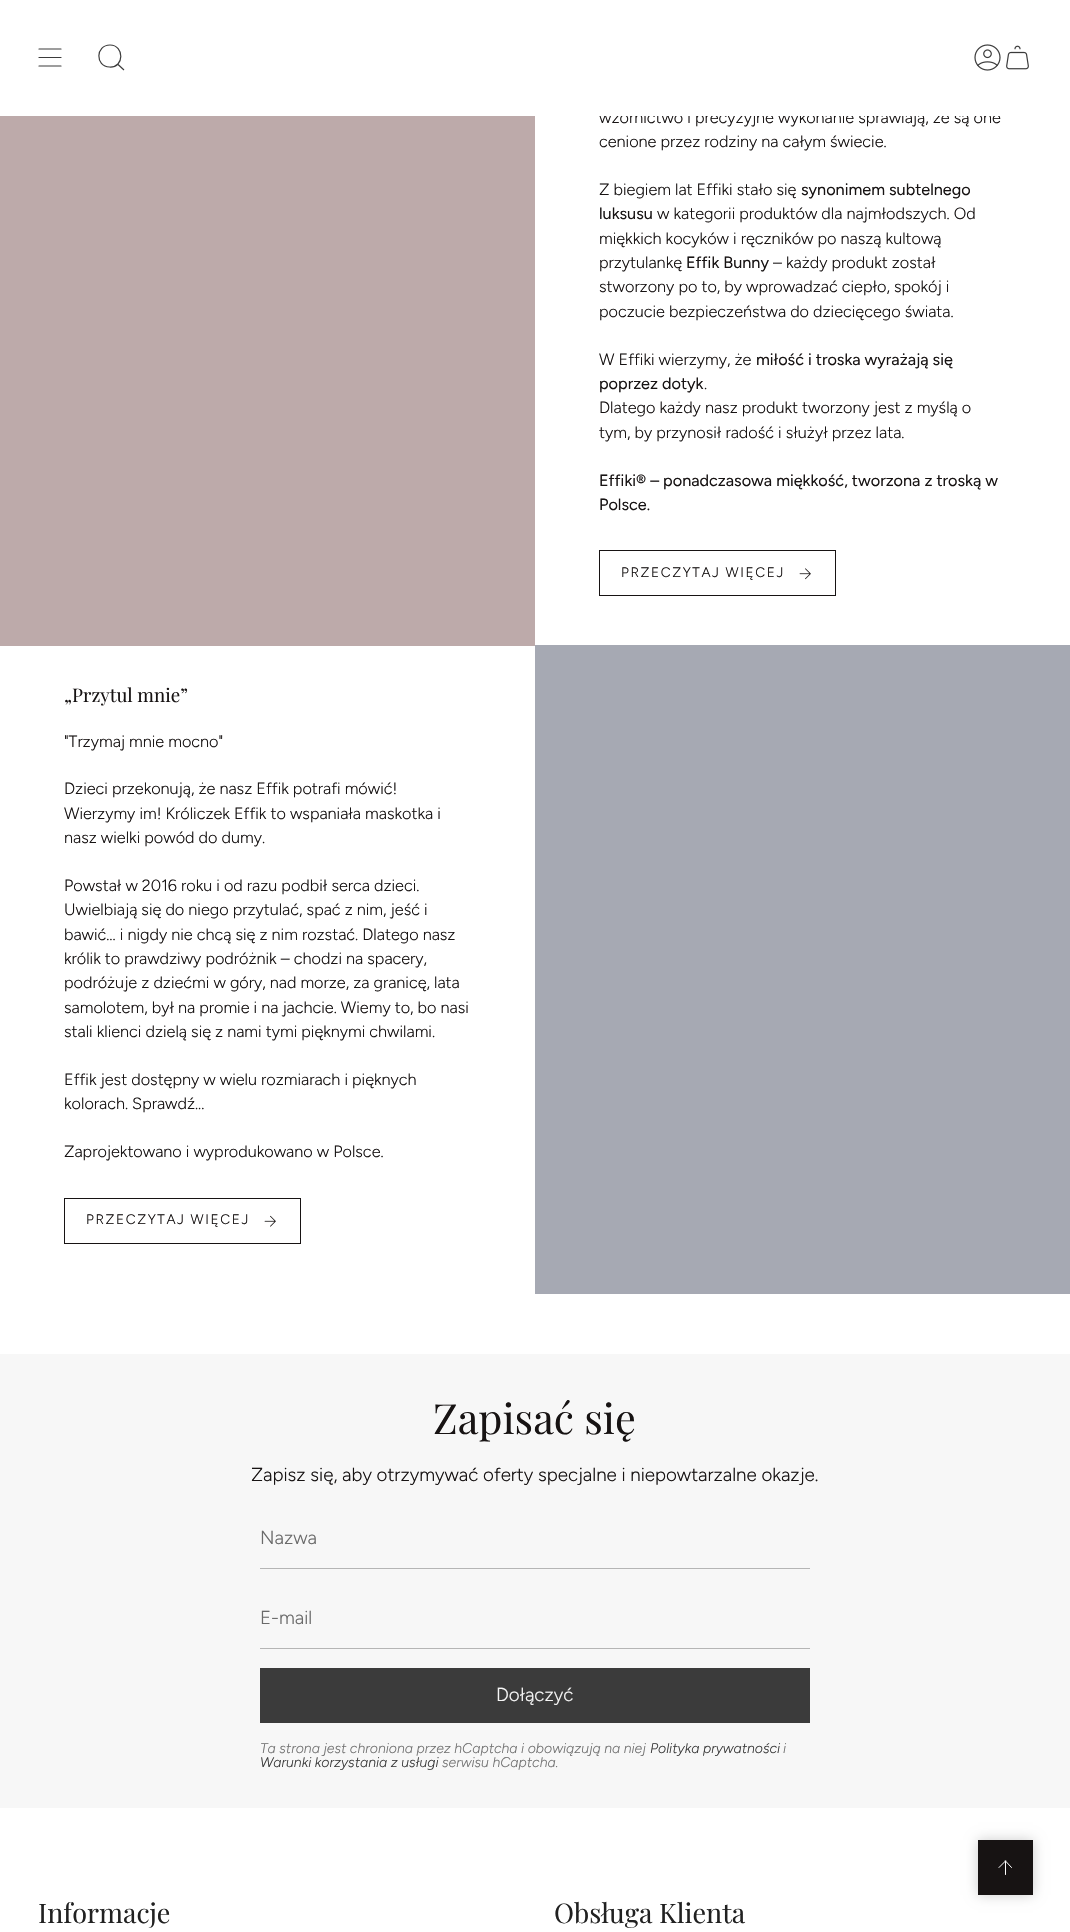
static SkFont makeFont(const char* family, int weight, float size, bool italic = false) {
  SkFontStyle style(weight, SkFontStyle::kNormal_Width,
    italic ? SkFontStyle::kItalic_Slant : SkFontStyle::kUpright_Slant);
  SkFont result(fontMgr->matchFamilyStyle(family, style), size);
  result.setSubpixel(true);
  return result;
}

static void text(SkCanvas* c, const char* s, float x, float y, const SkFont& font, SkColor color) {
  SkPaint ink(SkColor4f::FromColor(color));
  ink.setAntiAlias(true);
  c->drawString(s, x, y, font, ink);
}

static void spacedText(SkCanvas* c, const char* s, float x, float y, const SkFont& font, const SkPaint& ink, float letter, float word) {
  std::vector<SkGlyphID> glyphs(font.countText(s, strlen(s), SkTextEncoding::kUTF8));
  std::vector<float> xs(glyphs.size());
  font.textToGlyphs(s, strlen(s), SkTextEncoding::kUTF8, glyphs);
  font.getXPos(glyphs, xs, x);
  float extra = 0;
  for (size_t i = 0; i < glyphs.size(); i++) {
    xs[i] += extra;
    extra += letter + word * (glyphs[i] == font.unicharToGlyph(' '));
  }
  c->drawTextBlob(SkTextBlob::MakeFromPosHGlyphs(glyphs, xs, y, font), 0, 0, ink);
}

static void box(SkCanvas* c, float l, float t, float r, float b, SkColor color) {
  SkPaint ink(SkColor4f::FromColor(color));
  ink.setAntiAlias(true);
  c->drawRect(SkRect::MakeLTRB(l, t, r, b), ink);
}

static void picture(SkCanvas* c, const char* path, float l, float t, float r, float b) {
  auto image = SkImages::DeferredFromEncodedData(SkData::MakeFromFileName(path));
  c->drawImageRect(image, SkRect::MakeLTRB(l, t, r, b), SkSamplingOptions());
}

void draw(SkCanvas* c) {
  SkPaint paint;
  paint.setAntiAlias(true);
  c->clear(0xffffffff);
  SkFont face1 = makeFont("Figtree", 300, 16.25f);
  text(c, "wzornictwo i precyzyjne wykonanie sprawiają, że są one", 599, 123, face1, 0xff171313);
  box(c, 599, 115, 1000, 116, 0xffffffff);
  paint.setStyle(SkPaint::kStroke_Style);
  paint.setStrokeWidth(1.2f);
  paint.setStrokeCap(SkPaint::kRound_Cap);
  paint.setStrokeJoin(SkPaint::kRound_Join);
  paint.setColor(0xff3b3b3b);
  c->drawPath(SkPathBuilder().moveTo(39, 49).lineTo(61, 49).moveTo(39, 57.5f).lineTo(61, 57.5f).moveTo(39, 66).lineTo(61, 66).detach(), paint);
  paint.setStrokeCap(SkPaint::kButt_Cap);
  paint.setStrokeJoin(SkPaint::kMiter_Join);
  c->drawPath(SkPathBuilder().moveTo(110, 45).cubicTo(124.5f, 45, 124.5f, 68, 109.5f, 67).cubicTo(95, 66.5f, 95.5f, 45, 110, 45).close().moveTo(117.5f, 64).lineTo(124, 70).detach(), paint);
  picture(c, "img_01.png", 974, 44, 1001, 71);
  picture(c, "img_02.png", 1006, 45, 1029, 70);
  box(c, 599, 111, 999, 115, 0xffffffff);
  box(c, 0, 116, 535, 646, 0xffbdaaaa);
  text(c, "cenione przez rodziny na całym świecie.", 599, 147, face1, 0xff171313);
  text(c, "Z biegiem lat Effiki stało się", 599, 195, face1, 0xff171313);
  SkFont face2 = makeFont("Figtree", 400, 16.25f);
  text(c, "synonimem subtelnego", 801, 195, face2, 0xff171313);
  text(c, "luksusu", 599, 219, face2, 0xff171313);
  text(c, "w kategorii produktów dla najmłodszych. Od", 657, 219, face1, 0xff171313);
  text(c, "miękkich kocyków i ręczników po naszą kultową", 599, 244, face1, 0xff171313);
  text(c, "przytulankę", 599, 268, face1, 0xff171313);
  text(c, "Effik Bunny", 686, 268, face2, 0xff171313);
  text(c, "– każdy produkt został", 773, 268, face1, 0xff171313);
  text(c, "stworzony po to, by wprowadzać ciepło, spokój i", 599, 292, face1, 0xff171313);
  text(c, "poczucie bezpieczeństwa do dziecięcego świata.", 599, 317, face1, 0xff171313);
  text(c, "W Effiki wierzymy, że", 599, 365, face1, 0xff171313);
  text(c, "miłość i troska wyrażają się", 756, 365, face2, 0xff171313);
  text(c, "poprzez dotyk", 599, 389, face2, 0xff171313);
  text(c, ".", 704, 389, face1, 0xff171313);
  text(c, "Dlatego każdy nasz produkt tworzony jest z myślą o", 599, 413, face1, 0xff171313);
  text(c, "tym, by przynosił radość i służył przez lata.", 599, 438, face1, 0xff171313);
  text(c, "Effiki® – ponadczasowa miękkość, tworzona z troską w", 599, 486, face2, 0xff171313);
  text(c, "Polsce.", 599, 510, face2, 0xff171313);
  paint.setStrokeWidth(1);
  paint.setColor(0xff171313);
  c->drawRect(SkRect::MakeLTRB(599.5f, 550.5f, 835.5f, 595.5f), paint);
  SkFont face3 = makeFont("Figtree", 300, 13.75f);
  paint.setStyle(SkPaint::kFill_Style);
  spacedText(c, "PRZECZYTAJ WIĘCEJ", 621, 577, face3, paint, 1.6f, 0);
  picture(c, "img_03.png", 799, 568, 811, 580);
  SkFont face4 = makeFont("Playfair Display", 400, 18.75f);
  text(c, "„Przytul mnie”", 64, 702, face4, 0xff171313);
  text(c, "\"Trzymaj mnie mocno\"", 64, 747, face1, 0xff171313);
  text(c, "Dzieci przekonują, że nasz Effik potrafi mówić!", 64, 794, face1, 0xff171313);
  text(c, "Wierzymy im! Króliczek Effik to wspaniała maskotka i", 64, 819, face1, 0xff171313);
  text(c, "nasz wielki powód do dumy.", 64, 843, face1, 0xff171313);
  text(c, "Powstał w 2016 roku i od razu podbił serca dzieci.", 64, 891, face1, 0xff171313);
  text(c, "Uwielbiają się do niego przytulać, spać z nim, jeść i", 64, 915, face1, 0xff171313);
  text(c, "bawić… i nigdy nie chcą się z nim rozstać. Dlatego nasz", 64, 940, face1, 0xff171313);
  text(c, "królik to prawdziwy podróżnik – chodzi na spacery,", 64, 964, face1, 0xff171313);
  text(c, "podróżuje z dziećmi w góry, nad morze, za granicę, lata", 64, 988, face1, 0xff171313);
  text(c, "samolotem, był na promie i na jachcie. Wiemy to, bo nasi", 64, 1013, face1, 0xff171313);
  text(c, "stali klienci dzielą się z nami tymi pięknymi chwilami.", 64, 1037, face1, 0xff171313);
  text(c, "Effik jest dostępny w wielu rozmiarach i pięknych", 64, 1085, face1, 0xff171313);
  text(c, "kolorach. Sprawdź...", 64, 1109, face1, 0xff171313);
  text(c, "Zaprojektowano i wyprodukowano w Polsce.", 64, 1157, face1, 0xff171313);
  paint.setStyle(SkPaint::kStroke_Style);
  c->drawRect(SkRect::MakeLTRB(64.5f, 1198.5f, 300.5f, 1243.5f), paint);
  paint.setStyle(SkPaint::kFill_Style);
  spacedText(c, "PRZECZYTAJ WIĘCEJ", 86, 1224, face3, paint, 1.6f, 0);
  picture(c, "img_04.png", 264, 1215, 276, 1227);
  box(c, 535, 645, 1070, 1294, 0xffa6a9b3);
  box(c, 0, 1354, 1070, 1808, 0xfff7f7f7);
  SkFont face5 = makeFont("Playfair Display", 400, 41.5f);
  text(c, "Zapisać się", 433, 1434, face5, 0xff171313);
  SkFont face6 = makeFont("Figtree", 300, 18.75f);
  text(c, "Zapisz się, aby otrzymywać oferty specjalne i niepowtarzalne okazje.", 251, 1481, face6, 0xff171313);
  box(c, 260, 1568, 810, 1569, 0xffb5b5b5);
  text(c, "Nazwa", 260, 1544, face6, 0xff6a6a6a);
  box(c, 260, 1648, 810, 1649, 0xffb5b5b5);
  text(c, "E-mail", 260, 1624, face6, 0xff6a6a6a);
  box(c, 260, 1668, 810, 1723, 0xff3b3b3b);
  text(c, "Dołączyć", 496, 1701, face6, 0xfff7f7f7);
  SkFont face7 = makeFont("Figtree", 300, 14.05f, true);
  text(c, "Ta strona jest chroniona przez hCaptcha i obowiązują na niej", 260, 1753, face7, 0xff737373);
  text(c, "Polityka prywatności", 650, 1753, face7, 0xff3b3b3b);
  text(c, "i", 783, 1753, face7, 0xff737373);
  text(c, "Warunki korzystania z usługi", 260, 1767, face7, 0xff3b3b3b);
  text(c, "serwisu hCaptcha.", 442, 1767, face7, 0xff737373);
  SkFont face8 = makeFont("Playfair Display", 400, 27);
  text(c, "Informacje", 38, 1923, face8, 0xff212121);
  text(c, "Obsługa Klienta", 554, 1923, face8, 0xff212121);
  paint.setColor(0x33000000);
  paint.setMaskFilter(SkMaskFilter::MakeBlur(kNormal_SkBlurStyle, 6));
  c->drawRect(SkRect::MakeLTRB(978, 1840, 1033, 1895), paint);
  paint.setMaskFilter(nullptr);
  box(c, 978, 1840, 1033, 1895, 0xff171313);
  paint.setStyle(SkPaint::kStroke_Style);
  paint.setStrokeCap(SkPaint::kRound_Cap);
  paint.setStrokeJoin(SkPaint::kRound_Join);
  paint.setColor(0xffffffff);
  c->drawPath(SkPathBuilder().moveTo(1005.5f, 1874.5f).lineTo(1005.5f, 1861).moveTo(1005.5f, 1861).lineTo(1011.5f, 1867.5f).moveTo(1005.5f, 1861).lineTo(999, 1867.5f).detach(), paint);
}
